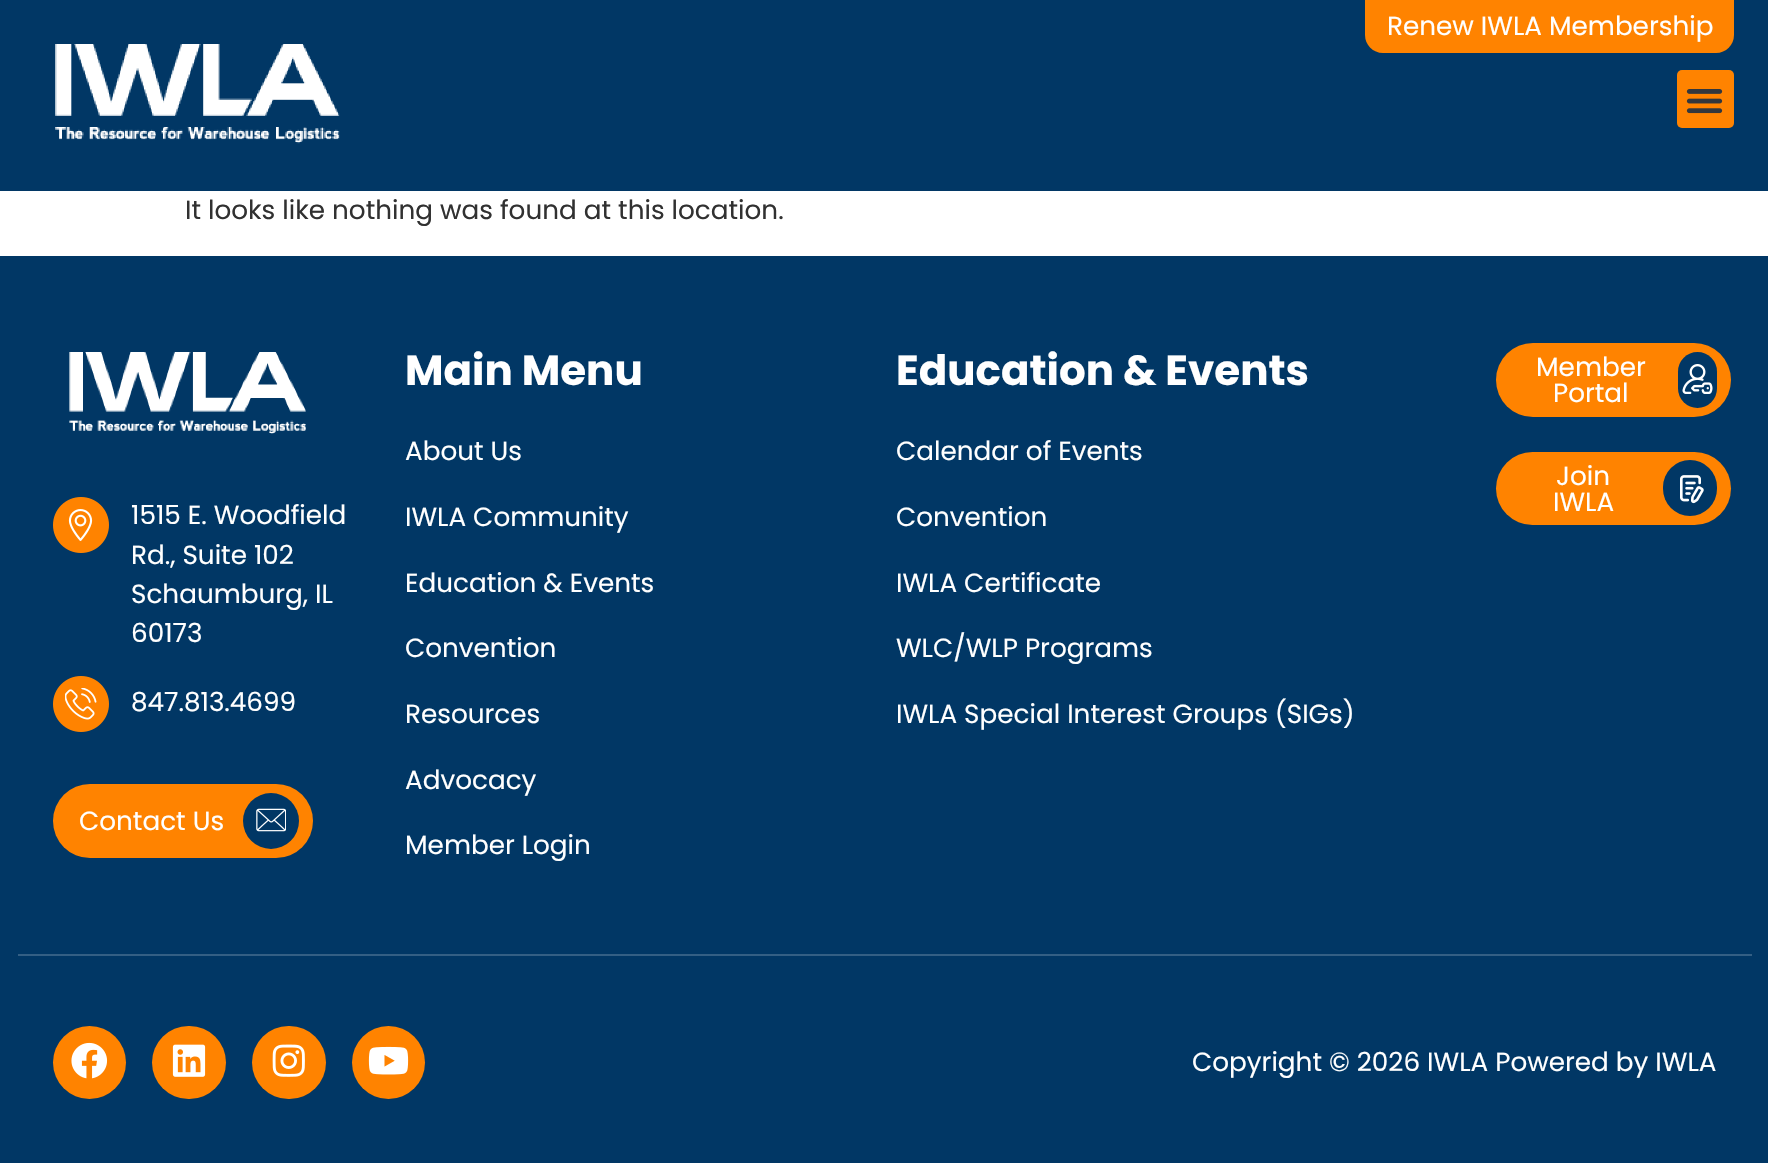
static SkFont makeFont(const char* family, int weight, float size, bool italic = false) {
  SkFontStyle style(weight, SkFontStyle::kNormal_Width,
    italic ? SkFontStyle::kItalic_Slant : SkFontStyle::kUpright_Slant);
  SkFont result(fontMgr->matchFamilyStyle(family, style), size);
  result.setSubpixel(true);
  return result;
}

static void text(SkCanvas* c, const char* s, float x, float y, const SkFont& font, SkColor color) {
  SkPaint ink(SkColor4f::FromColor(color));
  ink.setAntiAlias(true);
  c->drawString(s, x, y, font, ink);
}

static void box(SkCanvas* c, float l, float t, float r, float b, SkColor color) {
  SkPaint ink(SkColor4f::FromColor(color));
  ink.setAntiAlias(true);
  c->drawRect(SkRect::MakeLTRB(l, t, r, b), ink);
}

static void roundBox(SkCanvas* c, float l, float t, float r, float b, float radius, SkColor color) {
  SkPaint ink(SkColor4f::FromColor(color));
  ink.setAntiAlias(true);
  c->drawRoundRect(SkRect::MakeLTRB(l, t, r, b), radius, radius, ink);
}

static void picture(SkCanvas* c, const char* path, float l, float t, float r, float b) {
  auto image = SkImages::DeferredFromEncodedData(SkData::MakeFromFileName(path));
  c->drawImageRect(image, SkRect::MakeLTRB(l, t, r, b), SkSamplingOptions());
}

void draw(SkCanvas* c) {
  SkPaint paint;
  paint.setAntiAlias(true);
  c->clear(0xffffffff);
  box(c, 0, 0, 1768, 191, 0xff013765);
  paint.setColor(0xffff8300);
  c->drawPath(SkPathBuilder().moveTo(1365, -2).lineTo(1734, -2).lineTo(1734, 35).cubicTo(1734, 45, 1726, 53, 1716, 53).lineTo(1383, 53).cubicTo(1373, 53, 1365, 45, 1365, 35).close().detach(), paint);
  SkFont face1 = makeFont("Poppins", 400, 26.25f);
  text(c, "Renew IWLA Membership", 1387, 35, face1, 0xffffffff);
  roundBox(c, 1677, 70, 1734, 128, 5, 0xffff8300);
  picture(c, "img_01.png", 1686, 89, 1723, 114);
  picture(c, "img_02.png", 55, 44, 340, 144);
  text(c, "It looks like nothing was found at this location.", 185, 219, face1, 0xff313131);
  box(c, 0, 256, 1768, 1163, 0xff013765);
  SkFont face2 = makeFont("Poppins", 700, 42);
  text(c, "Main Menu", 405, 385, face2, 0xffffffff);
  text(c, "About Us", 405, 460, face1, 0xffffffff);
  text(c, "IWLA Community", 405, 526, face1, 0xffffffff);
  text(c, "Education & Events", 405, 592, face1, 0xffffffff);
  text(c, "Convention", 405, 657, face1, 0xffffffff);
  text(c, "Resources", 405, 723, face1, 0xffffffff);
  text(c, "Advocacy", 405, 789, face1, 0xffffffff);
  text(c, "Member Login", 405, 854, face1, 0xffffffff);
  text(c, "Education & Events", 896, 385, face2, 0xffffffff);
  text(c, "Calendar of Events", 896, 460, face1, 0xffffffff);
  text(c, "Convention", 896, 526, face1, 0xffffffff);
  text(c, "IWLA Certificate", 896, 592, face1, 0xffffffff);
  text(c, "WLC/WLP Programs", 896, 657, face1, 0xffffffff);
  text(c, "IWLA Special Interest Groups (SIGs)", 896, 723, face1, 0xffffffff);
  roundBox(c, 1496, 343, 1731, 417, 37, 0xffff8300);
  text(c, "Member", 1536, 376, face1, 0xffffffff);
  text(c, "Portal", 1553, 402, face1, 0xffffffff);
  roundBox(c, 1678, 352, 1717, 408, 19.5f, 0xff013765);
  picture(c, "img_03.png", 1682, 364, 1713, 394);
  roundBox(c, 1496, 452, 1731, 525, 36.5f, 0xffff8300);
  text(c, "Join", 1556, 485, face1, 0xffffffff);
  text(c, "IWLA", 1553, 511, face1, 0xffffffff);
  roundBox(c, 1663, 460, 1717, 516, 27, 0xff013765);
  picture(c, "img_04.png", 1680, 475, 1704, 504);
  picture(c, "img_05.png", 69, 352, 306, 434);
  picture(c, "img_06.png", 53, 497, 109, 553);
  text(c, "1515 E. Woodfield", 131, 524, face1, 0xffffffff);
  text(c, "Rd., Suite 102", 131, 564, face1, 0xffffffff);
  text(c, "Schaumburg, IL", 131, 603, face1, 0xffffffff);
  text(c, "60173", 131, 642, face1, 0xffffffff);
  picture(c, "img_07.png", 53, 676, 109, 732);
  text(c, "847.813.4699", 131, 711, face1, 0xffffffff);
  roundBox(c, 53, 784, 313, 858, 37, 0xffff8300);
  text(c, "Contact Us", 79, 830, face1, 0xffffffff);
  paint.setColor(0xff013765);
  c->drawCircle(271, 821, 28, paint);
  picture(c, "img_08.png", 256, 808, 286, 832);
  box(c, 18, 954, 1752, 956, 0xff345f84);
  paint.setColor(0xffff8300);
  c->drawCircle(89.5f, 1062.5f, 36.5f, paint);
  picture(c, "img_09.png", 71, 1042, 108, 1079);
  roundBox(c, 152, 1026, 226, 1099, 36.5f, 0xffff8300);
  picture(c, "img_10.png", 172, 1044, 206, 1077);
  roundBox(c, 252, 1026, 326, 1099, 36.5f, 0xffff8300);
  picture(c, "img_11.png", 272, 1044, 305, 1077);
  c->drawCircle(388.5f, 1062.5f, 36.5f, paint);
  picture(c, "img_12.png", 368, 1046, 409, 1075);
  text(c, "Copyright © 2026 IWLA Powered by IWLA", 1192, 1071, face1, 0xffffffff);
}
